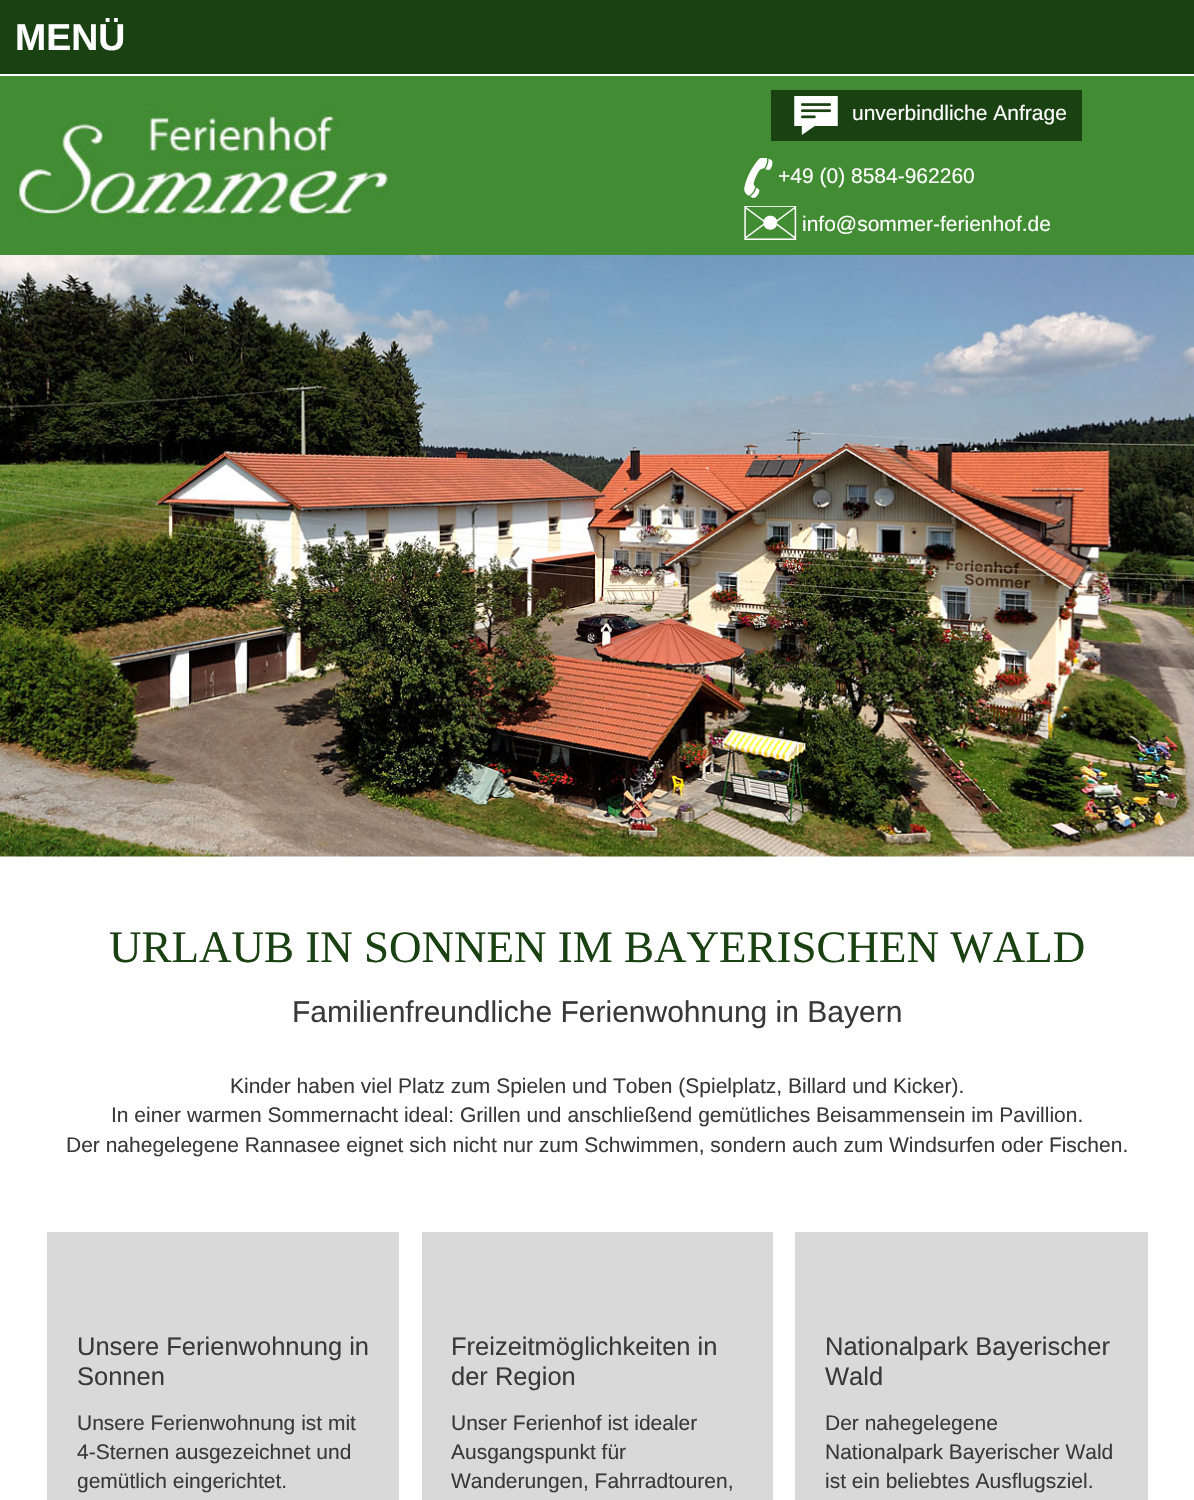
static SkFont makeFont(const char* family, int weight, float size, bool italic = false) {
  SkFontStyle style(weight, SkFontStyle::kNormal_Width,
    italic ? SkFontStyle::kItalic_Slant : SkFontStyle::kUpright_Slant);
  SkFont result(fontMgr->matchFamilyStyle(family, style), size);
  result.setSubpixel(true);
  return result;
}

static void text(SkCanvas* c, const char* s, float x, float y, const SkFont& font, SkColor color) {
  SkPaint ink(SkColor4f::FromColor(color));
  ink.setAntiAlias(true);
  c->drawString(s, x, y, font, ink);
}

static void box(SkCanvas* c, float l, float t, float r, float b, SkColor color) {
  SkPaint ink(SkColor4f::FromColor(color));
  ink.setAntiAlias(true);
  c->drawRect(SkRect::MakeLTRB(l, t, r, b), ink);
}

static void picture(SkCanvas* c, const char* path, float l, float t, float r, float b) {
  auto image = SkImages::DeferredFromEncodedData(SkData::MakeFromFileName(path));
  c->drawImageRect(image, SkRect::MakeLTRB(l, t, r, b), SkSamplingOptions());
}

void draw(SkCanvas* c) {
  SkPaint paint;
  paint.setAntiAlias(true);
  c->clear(0xffffffff);
  box(c, 0, 0, 1194, 74, 0xff1a4112);
  SkFont face1 = makeFont("Liberation Sans", 700, 37.5f);
  text(c, "MENÜ", 15, 50, face1, 0xffffffff);
  box(c, 0, 76, 1194, 255, 0xff428c33);
  picture(c, "img_01.png", 15, 109, 388, 218);
  box(c, 771, 90, 1082, 141, 0xff1a4112);
  picture(c, "img_02.png", 794, 96, 838, 135);
  SkFont face2 = makeFont("Liberation Sans", 400, 21);
  text(c, "unverbindliche Anfrage", 852, 120, face2, 0xffffffff);
  picture(c, "img_03.png", 744, 158, 773, 198);
  text(c, "+49 (0) 8584-962260", 778, 183, face2, 0xffffffff);
  picture(c, "img_04.png", 744, 206, 797, 240);
  text(c, "info@sommer-ferienhof.de", 802, 231, face2, 0xffffffff);
  picture(c, "img_05.png", 0, 255, 1194, 857);
  SkFont face3 = makeFont("Liberation Serif", 400, 45);
  text(c, "URLAUB IN SONNEN IM BAYERISCHEN WALD", 109, 962, face3, 0xff1a4112);
  SkFont face4 = makeFont("Liberation Sans", 400, 30);
  text(c, "Familienfreundliche Ferienwohnung in Bayern", 292, 1022, face4, 0xff393939);
  text(c, "Kinder haben viel Platz zum Spielen und Toben (Spielplatz, Billard und Kicker).", 230, 1093, face2, 0xff393939);
  text(c, "In einer warmen Sommernacht ideal: Grillen und anschließend gemütliches Beisammensein im Pavillion.", 111, 1122, face2, 0xff393939);
  text(c, "Der nahegelegene Rannasee eignet sich nicht nur zum Schwimmen, sondern auch zum Windsurfen oder Fischen.", 66, 1152, face2, 0xff393939);
  box(c, 47, 1232, 399, 1500, 0xffd9d9d9);
  SkFont face5 = makeFont("Liberation Sans", 400, 25.5f);
  text(c, "Unsere Ferienwohnung in", 77, 1355, face5, 0xff393939);
  text(c, "Sonnen", 77, 1385, face5, 0xff393939);
  text(c, "Unsere Ferienwohnung ist mit", 77, 1430, face2, 0xff393939);
  text(c, "4-Sternen ausgezeichnet und", 77, 1459, face2, 0xff393939);
  text(c, "gemütlich eingerichtet.", 77, 1488, face2, 0xff393939);
  box(c, 422, 1232, 773, 1500, 0xffd9d9d9);
  text(c, "Freizeitmöglichkeiten in", 451, 1355, face5, 0xff393939);
  text(c, "der Region", 451, 1385, face5, 0xff393939);
  text(c, "Unser Ferienhof ist idealer", 451, 1430, face2, 0xff393939);
  text(c, "Ausgangspunkt für", 451, 1459, face2, 0xff393939);
  text(c, "Wanderungen, Fahrradtouren,", 451, 1488, face2, 0xff393939);
  box(c, 795, 1232, 1148, 1500, 0xffd9d9d9);
  text(c, "Nationalpark Bayerischer", 825, 1355, face5, 0xff393939);
  text(c, "Wald", 825, 1385, face5, 0xff393939);
  text(c, "Der nahegelegene", 825, 1430, face2, 0xff393939);
  text(c, "Nationalpark Bayerischer Wald", 825, 1459, face2, 0xff393939);
  text(c, "ist ein beliebtes Ausflugsziel.", 825, 1488, face2, 0xff393939);
}
